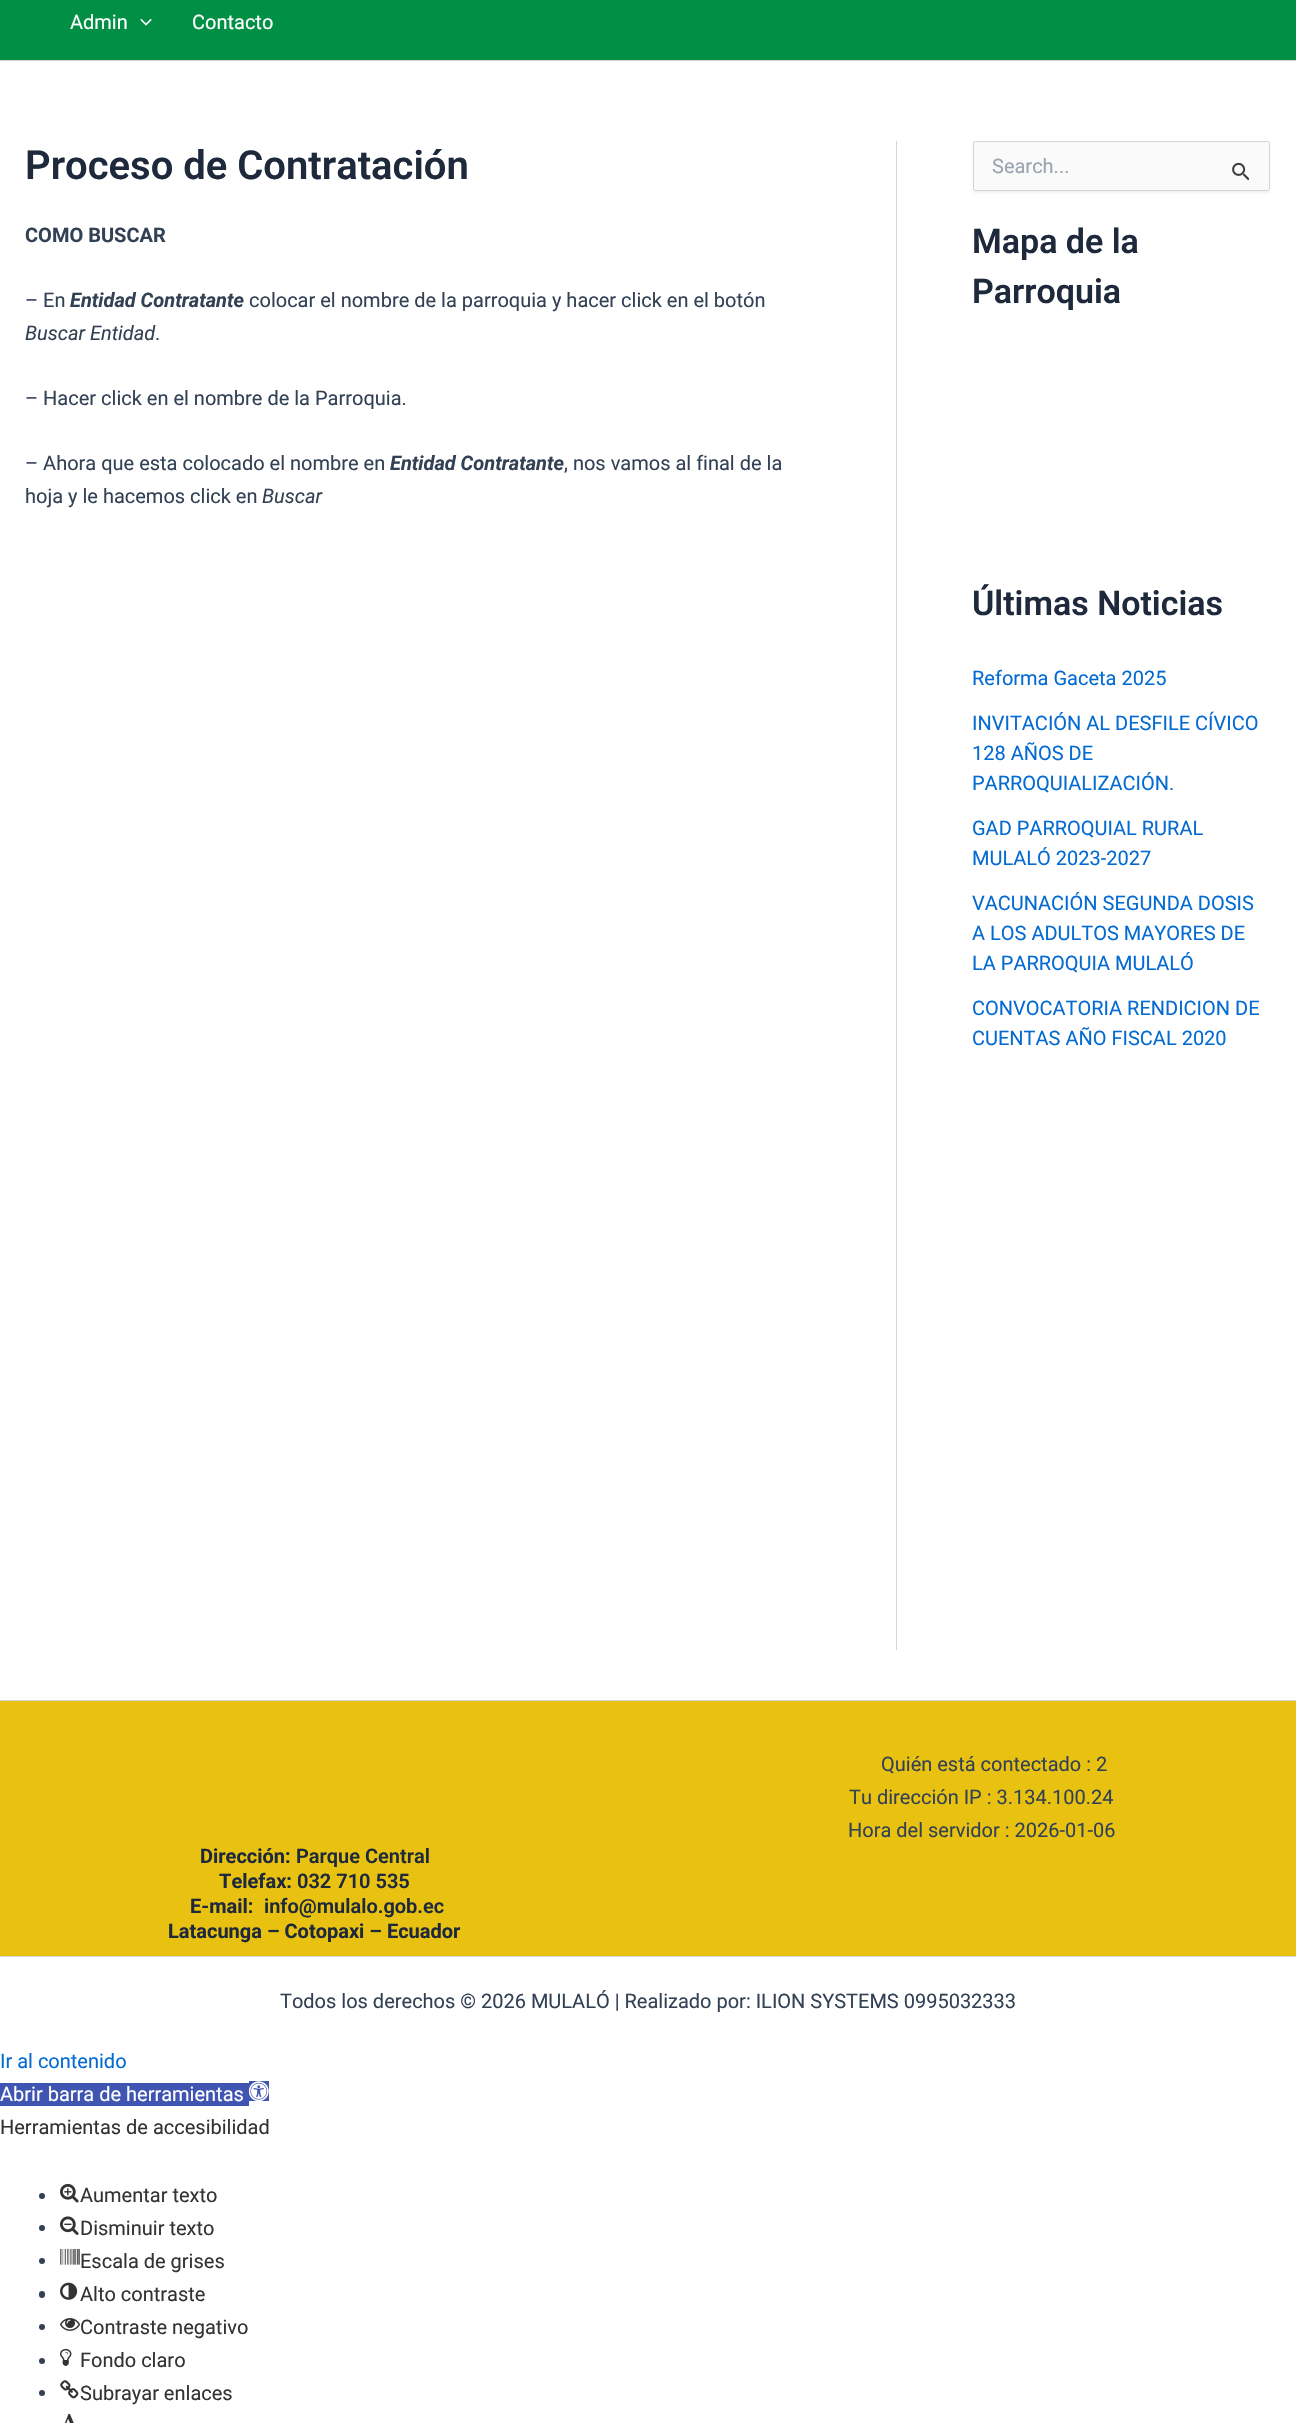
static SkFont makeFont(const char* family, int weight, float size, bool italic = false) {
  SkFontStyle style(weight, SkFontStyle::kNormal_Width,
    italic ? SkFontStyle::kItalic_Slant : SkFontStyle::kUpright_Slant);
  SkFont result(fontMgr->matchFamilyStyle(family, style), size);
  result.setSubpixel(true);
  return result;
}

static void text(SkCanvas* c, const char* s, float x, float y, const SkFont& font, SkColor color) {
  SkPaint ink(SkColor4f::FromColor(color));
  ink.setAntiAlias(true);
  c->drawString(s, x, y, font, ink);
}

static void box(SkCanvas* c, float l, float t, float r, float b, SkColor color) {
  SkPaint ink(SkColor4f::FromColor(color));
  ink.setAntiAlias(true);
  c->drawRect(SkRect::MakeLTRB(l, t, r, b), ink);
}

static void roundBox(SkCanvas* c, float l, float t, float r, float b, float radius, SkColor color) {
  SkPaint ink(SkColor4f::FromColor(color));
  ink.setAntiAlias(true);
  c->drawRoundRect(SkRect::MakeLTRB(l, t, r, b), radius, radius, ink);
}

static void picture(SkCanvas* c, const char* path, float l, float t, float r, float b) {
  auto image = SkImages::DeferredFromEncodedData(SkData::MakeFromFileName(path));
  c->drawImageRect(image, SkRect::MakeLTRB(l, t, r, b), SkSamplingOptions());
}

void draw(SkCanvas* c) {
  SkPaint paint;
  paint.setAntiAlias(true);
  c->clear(0xffffffff);
  box(c, 0, 0, 1296, 60, 0xff008f45);
  box(c, 0, 60, 1296, 61, 0xffd1d5db);
  SkFont face1 = makeFont("Roboto", 400, 20);
  text(c, "Admin", 70, 29, face1, 0xffffffff);
  picture(c, "img_01.png", 140, 18, 152, 26);
  text(c, "Contacto", 192, 29, face1, 0xffffffff);
  SkFont face2 = makeFont("Roboto", 600, 40);
  text(c, "Proceso de Contratación", 25, 179, face2, 0xff1e293b);
  SkFont face3 = makeFont("Roboto", 700, 20);
  text(c, "COMO BUSCAR", 25, 242, face3, 0xff334155);
  text(c, "– En", 25, 307, face1, 0xff334155);
  SkFont face4 = makeFont("Roboto", 700, 20, true);
  text(c, "Entidad Contratante", 70, 307, face4, 0xff334155);
  text(c, "colocar el nombre de la parroquia y hacer click en el botón", 249, 307, face1, 0xff334155);
  SkFont face5 = makeFont("Roboto", 400, 20, true);
  text(c, "Buscar Entidad", 25, 340, face5, 0xff334155);
  text(c, ".", 155, 340, face1, 0xff334155);
  text(c, "– Hacer click en el nombre de la Parroquia.", 25, 405, face1, 0xff334155);
  text(c, "– Ahora que esta colocado el nombre en", 25, 470, face1, 0xff334155);
  text(c, "Entidad Contratante", 390, 470, face4, 0xff334155);
  text(c, ", nos vamos al final de la", 564, 470, face1, 0xff334155);
  text(c, "hoja y le hacemos click en", 25, 503, face1, 0xff334155);
  text(c, "Buscar", 262, 503, face5, 0xff334155);
  box(c, 896, 141, 897, 1650, 0xffd1d5db);
  paint.setColor(0x0d000000);
  paint.setMaskFilter(SkMaskFilter::MakeBlur(kNormal_SkBlurStyle, 1));
  c->drawRoundRect(SkRect::MakeLTRB(973, 143, 1270, 193), 2.5f, 2.5f, paint);
  paint.setMaskFilter(nullptr);
  paint.setColor(0xfffafafa);
  c->drawRoundRect(SkRect::MakeLTRB(973.5f, 141.5f, 1269.5f, 190.5f), 2, 2, paint);
  paint.setStyle(SkPaint::kStroke_Style);
  paint.setStrokeWidth(1);
  paint.setColor(0xffd1d5db);
  c->drawRoundRect(SkRect::MakeLTRB(973.5f, 141.5f, 1269.5f, 190.5f), 2, 2, paint);
  text(c, "Search...", 992, 173, face1, 0xff9ca3af);
  picture(c, "img_02.png", 1232, 162, 1249, 181);
  SkFont face6 = makeFont("Roboto", 600, 34);
  text(c, "Mapa de la", 972, 253, face6, 0xff1e293b);
  text(c, "Parroquia", 972, 303, face6, 0xff1e293b);
  text(c, "Últimas Noticias", 972, 615, face6, 0xff1e293b);
  text(c, "Reforma Gaceta 2025", 972, 685, face1, 0xff046bd2);
  text(c, "INVITACIÓN AL DESFILE CÍVICO", 972, 730, face1, 0xff046bd2);
  text(c, "128 AÑOS DE", 972, 760, face1, 0xff046bd2);
  text(c, "PARROQUIALIZACIÓN.", 972, 790, face1, 0xff046bd2);
  text(c, "GAD PARROQUIAL RURAL", 972, 835, face1, 0xff046bd2);
  text(c, "MULALÓ 2023-2027", 972, 865, face1, 0xff046bd2);
  text(c, "VACUNACIÓN SEGUNDA DOSIS", 972, 910, face1, 0xff046bd2);
  text(c, "A LOS ADULTOS MAYORES DE", 972, 940, face1, 0xff046bd2);
  text(c, "LA PARROQUIA MULALÓ", 972, 970, face1, 0xff046bd2);
  text(c, "CONVOCATORIA RENDICION DE", 972, 1015, face1, 0xff046bd2);
  text(c, "CUENTAS AÑO FISCAL 2020", 972, 1045, face1, 0xff046bd2);
  box(c, 0, 1701, 1296, 1956, 0xffe9c211);
  box(c, 0, 1700, 1296, 1701, 0xffd1d5db);
  text(c, "Quién está contectado : 2", 881, 1771, face1, 0xff334155);
  text(c, "Tu dirección IP : 3.134.100.24", 849, 1804, face1, 0xff334155);
  text(c, "Hora del servidor : 2026-01-06", 848, 1837, face1, 0xff334155);
  text(c, "Dirección:", 200, 1863, face3, 0xff1e293b);
  SkFont face7 = makeFont("Roboto", 600, 20);
  text(c, "Parque Central", 296, 1863, face7, 0xff1e293b);
  text(c, "Telefax:", 219, 1888, face3, 0xff1e293b);
  text(c, "032 710 535", 297, 1888, face7, 0xff1e293b);
  text(c, "E-mail:", 190, 1913, face3, 0xff1e293b);
  text(c, "info@mulalo.gob.ec", 264, 1913, face7, 0xff1e293b);
  text(c, "Latacunga – Cotopaxi – Ecuador", 168, 1938, face3, 0xff1e293b);
  box(c, 0, 1956, 1296, 1957, 0xffd1d5db);
  text(c, "Todos los derechos © 2026 MULALÓ | Realizado por: ILION SYSTEMS 0995032333", 280, 2008, face1, 0xff334155);
  text(c, "Ir al contenido", 0, 2068, face1, 0xff046bd2);
  box(c, 0, 2083, 249, 2106, 0xff4054b2);
  text(c, "Abrir barra de herramientas", 0, 2101, face1, 0xffffffff);
  box(c, 249, 2081, 269, 2101, 0xff4054b2);
  picture(c, "img_03.png", 249, 2081, 269, 2101);
  text(c, "Herramientas de accesibilidad", 0, 2134, face1, 0xff333333);
  paint.setStyle(SkPaint::kFill_Style);
  paint.setColor(0xff334155);
  c->drawCircle(42, 2196, 3, paint);
  picture(c, "img_04.png", 60, 2183, 79, 2203);
  text(c, "Aumentar texto", 80, 2202, face1, 0xff333333);
  c->drawCircle(42, 2228, 3, paint);
  picture(c, "img_05.png", 60, 2216, 79, 2235);
  text(c, "Disminuir texto", 80, 2235, face1, 0xff333333);
  c->drawCircle(42, 2261, 3, paint);
  picture(c, "img_06.png", 60, 2248, 80, 2265);
  text(c, "Escala de grises", 80, 2268, face1, 0xff333333);
  roundBox(c, 39, 2291, 45, 2298, 3, 0xff334155);
  picture(c, "img_07.png", 60, 2282, 78, 2300);
  text(c, "Alto contraste", 80, 2301, face1, 0xff333333);
  c->drawCircle(42, 2327, 3, paint);
  picture(c, "img_08.png", 60, 2318, 80, 2331);
  text(c, "Contraste negativo", 80, 2334, face1, 0xff333333);
  c->drawCircle(42, 2361, 3, paint);
  picture(c, "img_09.png", 60, 2348, 72, 2367);
  text(c, "Fondo claro", 80, 2367, face1, 0xff333333);
  c->drawCircle(42, 2393, 3, paint);
  picture(c, "img_10.png", 60, 2380, 79, 2399);
  text(c, "Subrayar enlaces", 80, 2400, face1, 0xff333333);
  picture(c, "img_11.png", 65, 2413, 74, 2423);
}
